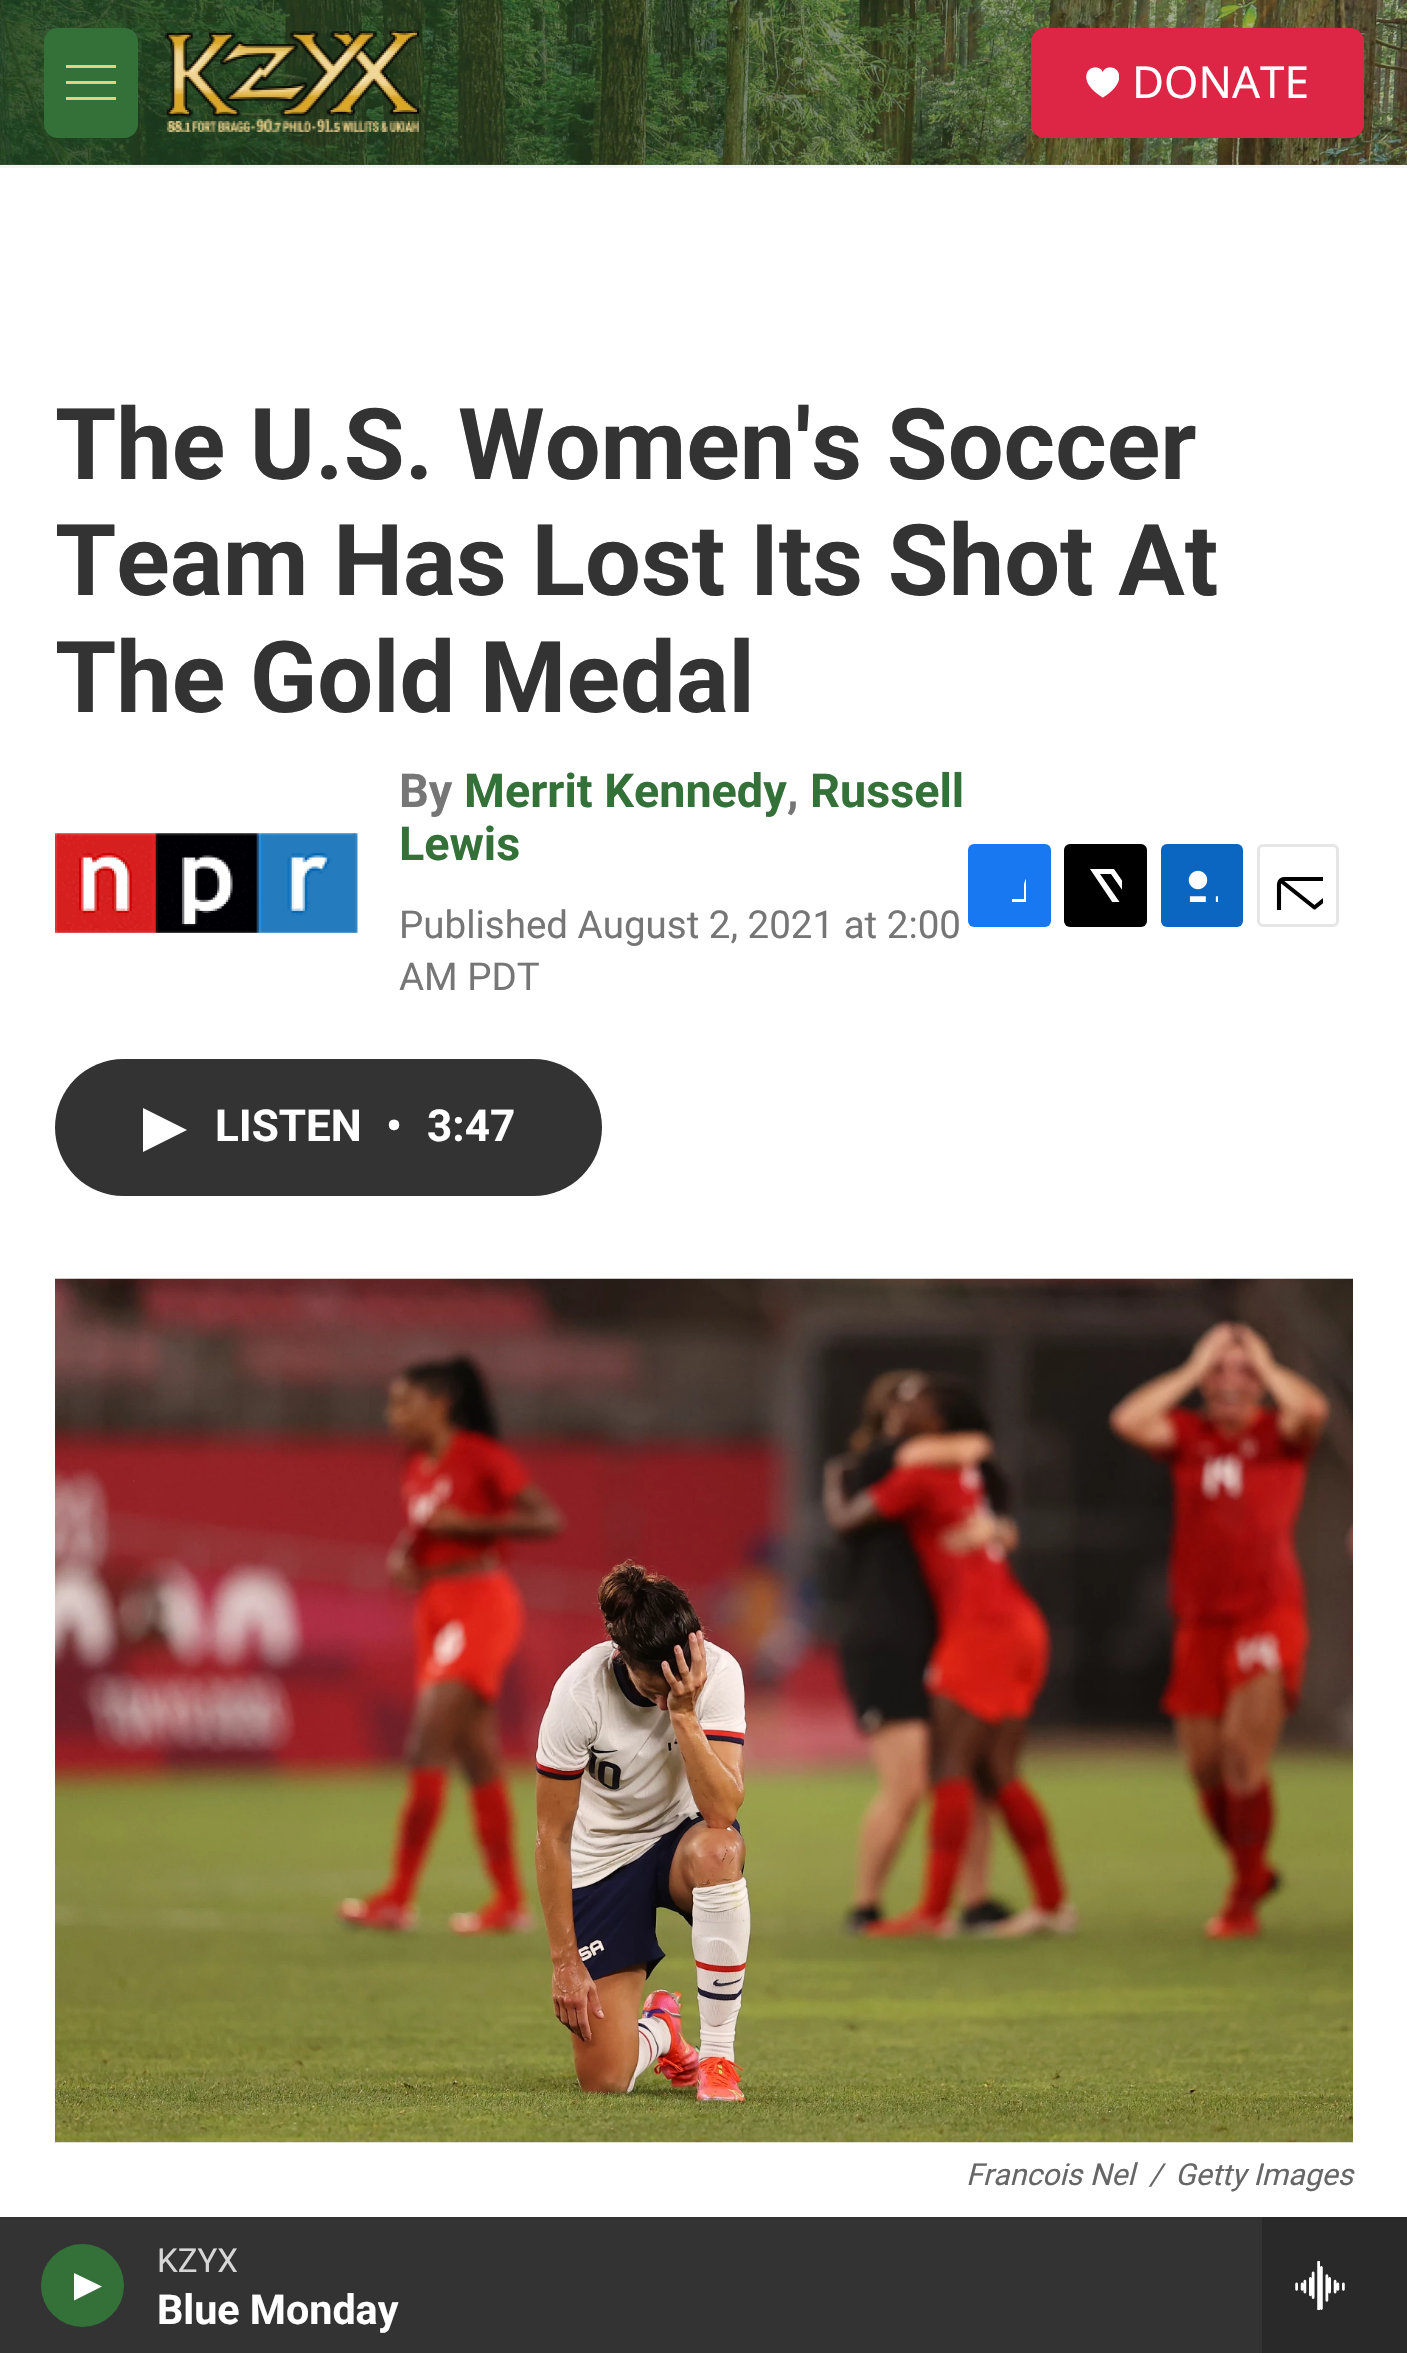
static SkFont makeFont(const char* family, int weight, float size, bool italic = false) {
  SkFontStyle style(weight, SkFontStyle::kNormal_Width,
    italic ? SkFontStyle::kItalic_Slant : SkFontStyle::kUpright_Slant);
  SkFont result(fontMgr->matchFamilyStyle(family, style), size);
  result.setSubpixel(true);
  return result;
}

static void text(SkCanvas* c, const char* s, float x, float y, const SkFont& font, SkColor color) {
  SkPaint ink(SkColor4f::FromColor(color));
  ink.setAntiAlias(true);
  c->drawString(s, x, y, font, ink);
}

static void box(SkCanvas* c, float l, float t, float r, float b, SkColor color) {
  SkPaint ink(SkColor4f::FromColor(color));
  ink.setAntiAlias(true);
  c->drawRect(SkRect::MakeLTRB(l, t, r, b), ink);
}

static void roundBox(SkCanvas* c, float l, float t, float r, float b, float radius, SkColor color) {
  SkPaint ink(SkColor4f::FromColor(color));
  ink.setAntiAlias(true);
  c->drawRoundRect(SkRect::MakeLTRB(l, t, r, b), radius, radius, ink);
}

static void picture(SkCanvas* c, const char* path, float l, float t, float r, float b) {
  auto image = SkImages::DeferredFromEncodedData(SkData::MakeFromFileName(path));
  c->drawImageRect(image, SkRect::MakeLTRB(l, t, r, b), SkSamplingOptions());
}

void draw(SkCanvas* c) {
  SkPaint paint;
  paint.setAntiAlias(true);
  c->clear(0xffffffff);
  box(c, 0, 165, 1407, 168, 0xfff5f5f5);
  picture(c, "img_01.png", 0, 0, 1407, 165);
  roundBox(c, 44, 28, 138, 138, 14, 0xff337138);
  paint.setColor(0xffe9ce86);
  c->drawPath(SkPathBuilder(SkPathFillType::kEvenOdd).moveTo(66, 84).lineTo(66, 81).lineTo(116, 81).lineTo(116, 84).close().moveTo(66, 68).lineTo(66, 65).lineTo(116, 65).lineTo(116, 68).close().moveTo(66, 100).lineTo(66, 97).lineTo(116, 97).lineTo(116, 100).close().detach(), paint);
  picture(c, "img_02.png", 165, 29, 421, 132);
  roundBox(c, 1031, 28, 1364, 138, 14, 0xffdd2646);
  picture(c, "img_03.png", 1086, 67, 1119, 98);
  SkFont face1 = makeFont("Noto Sans", 400, 44);
  text(c, "DONATE", 1132, 98, face1, 0xffffffff);
  box(c, 0, 2217, 1262, 2353, 0xff333333);
  paint.setColor(0xff337138);
  c->drawCircle(82.5f, 2285.5f, 41.5f, paint);
  paint.setColor(0xffffffff);
  c->drawPath(SkPathBuilder().moveTo(74, 2273).lineTo(102, 2286.5f).lineTo(74, 2300.5f).close().detach(), paint);
  SkFont face2 = makeFont("Roboto", 400, 33);
  text(c, "KZYX", 157, 2272, face2, 0xffd6d6d6);
  SkFont face3 = makeFont("Roboto", 700, 41.25f);
  text(c, "Blue Monday", 157, 2324, face3, 0xffffffff);
  box(c, 1262, 2217, 1407, 2353, 0xff292929);
  picture(c, "img_04.png", 1295, 2261, 1345, 2310);
  SkFont face4 = makeFont("Roboto", 700, 99);
  text(c, "The U.S. Women's Soccer", 55, 479, face4, 0xff333333);
  text(c, "Team Has Lost Its Shot At", 55, 595, face4, 0xff333333);
  text(c, "The Gold Medal", 55, 712, face4, 0xff333333);
  picture(c, "img_05.png", 55, 833, 358, 935);
  SkFont face5 = makeFont("Roboto", 700, 46.75f);
  text(c, "By", 399, 807, face5, 0xff767676);
  text(c, "Merrit Kennedy", 464, 807, face5, 0xff337138);
  text(c, ",", 787, 807, face5, 0xff767676);
  text(c, "Russell", 810, 807, face5, 0xff337138);
  text(c, "Lewis", 399, 860, face5, 0xff337138);
  SkFont face6 = makeFont("Roboto", 400, 38.5f);
  text(c, "Published August 2, 2021 at 2:00", 399, 938, face6, 0xff767676);
  text(c, "AM PDT", 399, 990, face6, 0xff767676);
  roundBox(c, 968, 844, 1051, 927, 6, 0xff1778f2);
  c->save();
  c->clipRect(SkRect::MakeLTRB(993, 869, 1026, 902));
  c->drawPath(SkPathBuilder().moveTo(1038, 927).lineTo(1024, 927).lineTo(1024, 913).lineTo(1012, 913).lineTo(1012, 899).lineTo(1024, 899).lineTo(1024, 884).cubicTo(1027, 871, 1039, 869, 1051, 871).lineTo(1051, 883).cubicTo(1036, 883, 1038, 887, 1038, 899).lineTo(1051, 899).lineTo(1050, 913).lineTo(1038, 913).close().detach(), paint);
  c->restore();
  roundBox(c, 1064, 844, 1147, 927, 6, 0xff000000);
  c->save();
  c->clipRect(SkRect::MakeLTRB(1089, 869, 1122, 902));
  c->drawPath(SkPathBuilder().moveTo(1138, 904).lineTo(1147, 917).cubicTo(1147, 919, 1147, 922, 1146, 924).lineTo(1111, 874).lineTo(1100, 874).lineTo(1137, 927).lineTo(1130, 927).lineTo(1125, 919).lineTo(1118, 927).lineTo(1111, 927).lineTo(1121, 915).lineTo(1090, 869).lineTo(1114, 869).lineTo(1135, 899).lineTo(1147, 885).lineTo(1147, 894).close().detach(), paint);
  c->restore();
  roundBox(c, 1161, 844, 1243, 927, 6, 0xff0a66c1);
  picture(c, "img_06.png", 1188, 870, 1218, 902);
  paint.setStyle(SkPaint::kStroke_Style);
  paint.setStrokeWidth(3);
  paint.setColor(0xffe6e6e6);
  c->drawRoundRect(SkRect::MakeLTRB(1258.5f, 845.5f, 1337.5f, 925.5f), 4.5f, 4.5f, paint);
  c->save();
  c->clipRect(SkRect::MakeLTRB(1273, 861, 1323, 910));
  paint.setStrokeWidth(4.1f);
  paint.setStrokeCap(SkPaint::kRound_Cap);
  paint.setStrokeJoin(SkPaint::kRound_Join);
  paint.setColor(0xff000000);
  c->drawPath(SkPathBuilder().moveTo(1350, 921).cubicTo(1350, 924, 1347.5f, 926, 1345, 926).lineTo(1284, 926).cubicTo(1281.5f, 926, 1279, 924, 1279, 921).lineTo(1279, 884).cubicTo(1279, 881, 1281.5f, 879, 1284, 879).lineTo(1345, 879).cubicTo(1347.5f, 879, 1350, 881, 1350, 884).close().moveTo(1348, 880.5f).lineTo(1314.5f, 907.5f).lineTo(1280.5f, 880.5f).detach(), paint);
  c->restore();
  roundBox(c, 55, 1059, 602, 1196, 68.5f, 0xff333333);
  paint.setStyle(SkPaint::kFill_Style);
  paint.setColor(0xffffffff);
  c->drawPath(SkPathBuilder().moveTo(143, 1108).lineTo(187, 1130).lineTo(143, 1152).close().detach(), paint);
  SkFont face7 = makeFont("Roboto", 700, 44);
  text(c, "LISTEN", 215, 1141, face7, 0xffffffff);
  text(c, "•", 386, 1141, face7, 0xffffffff);
  text(c, "3:47", 427, 1141, face7, 0xffffffff);
  picture(c, "img_07.png", 55, 1278, 1353, 2143);
  SkFont face8 = makeFont("Roboto", 400, 30.25f, true);
  text(c, "Francois Nel", 966, 2185, face8, 0xff666666);
  text(c, "/", 1149, 2185, face8, 0xff666666);
  text(c, "Getty Images", 1175, 2185, face8, 0xff666666);
}
